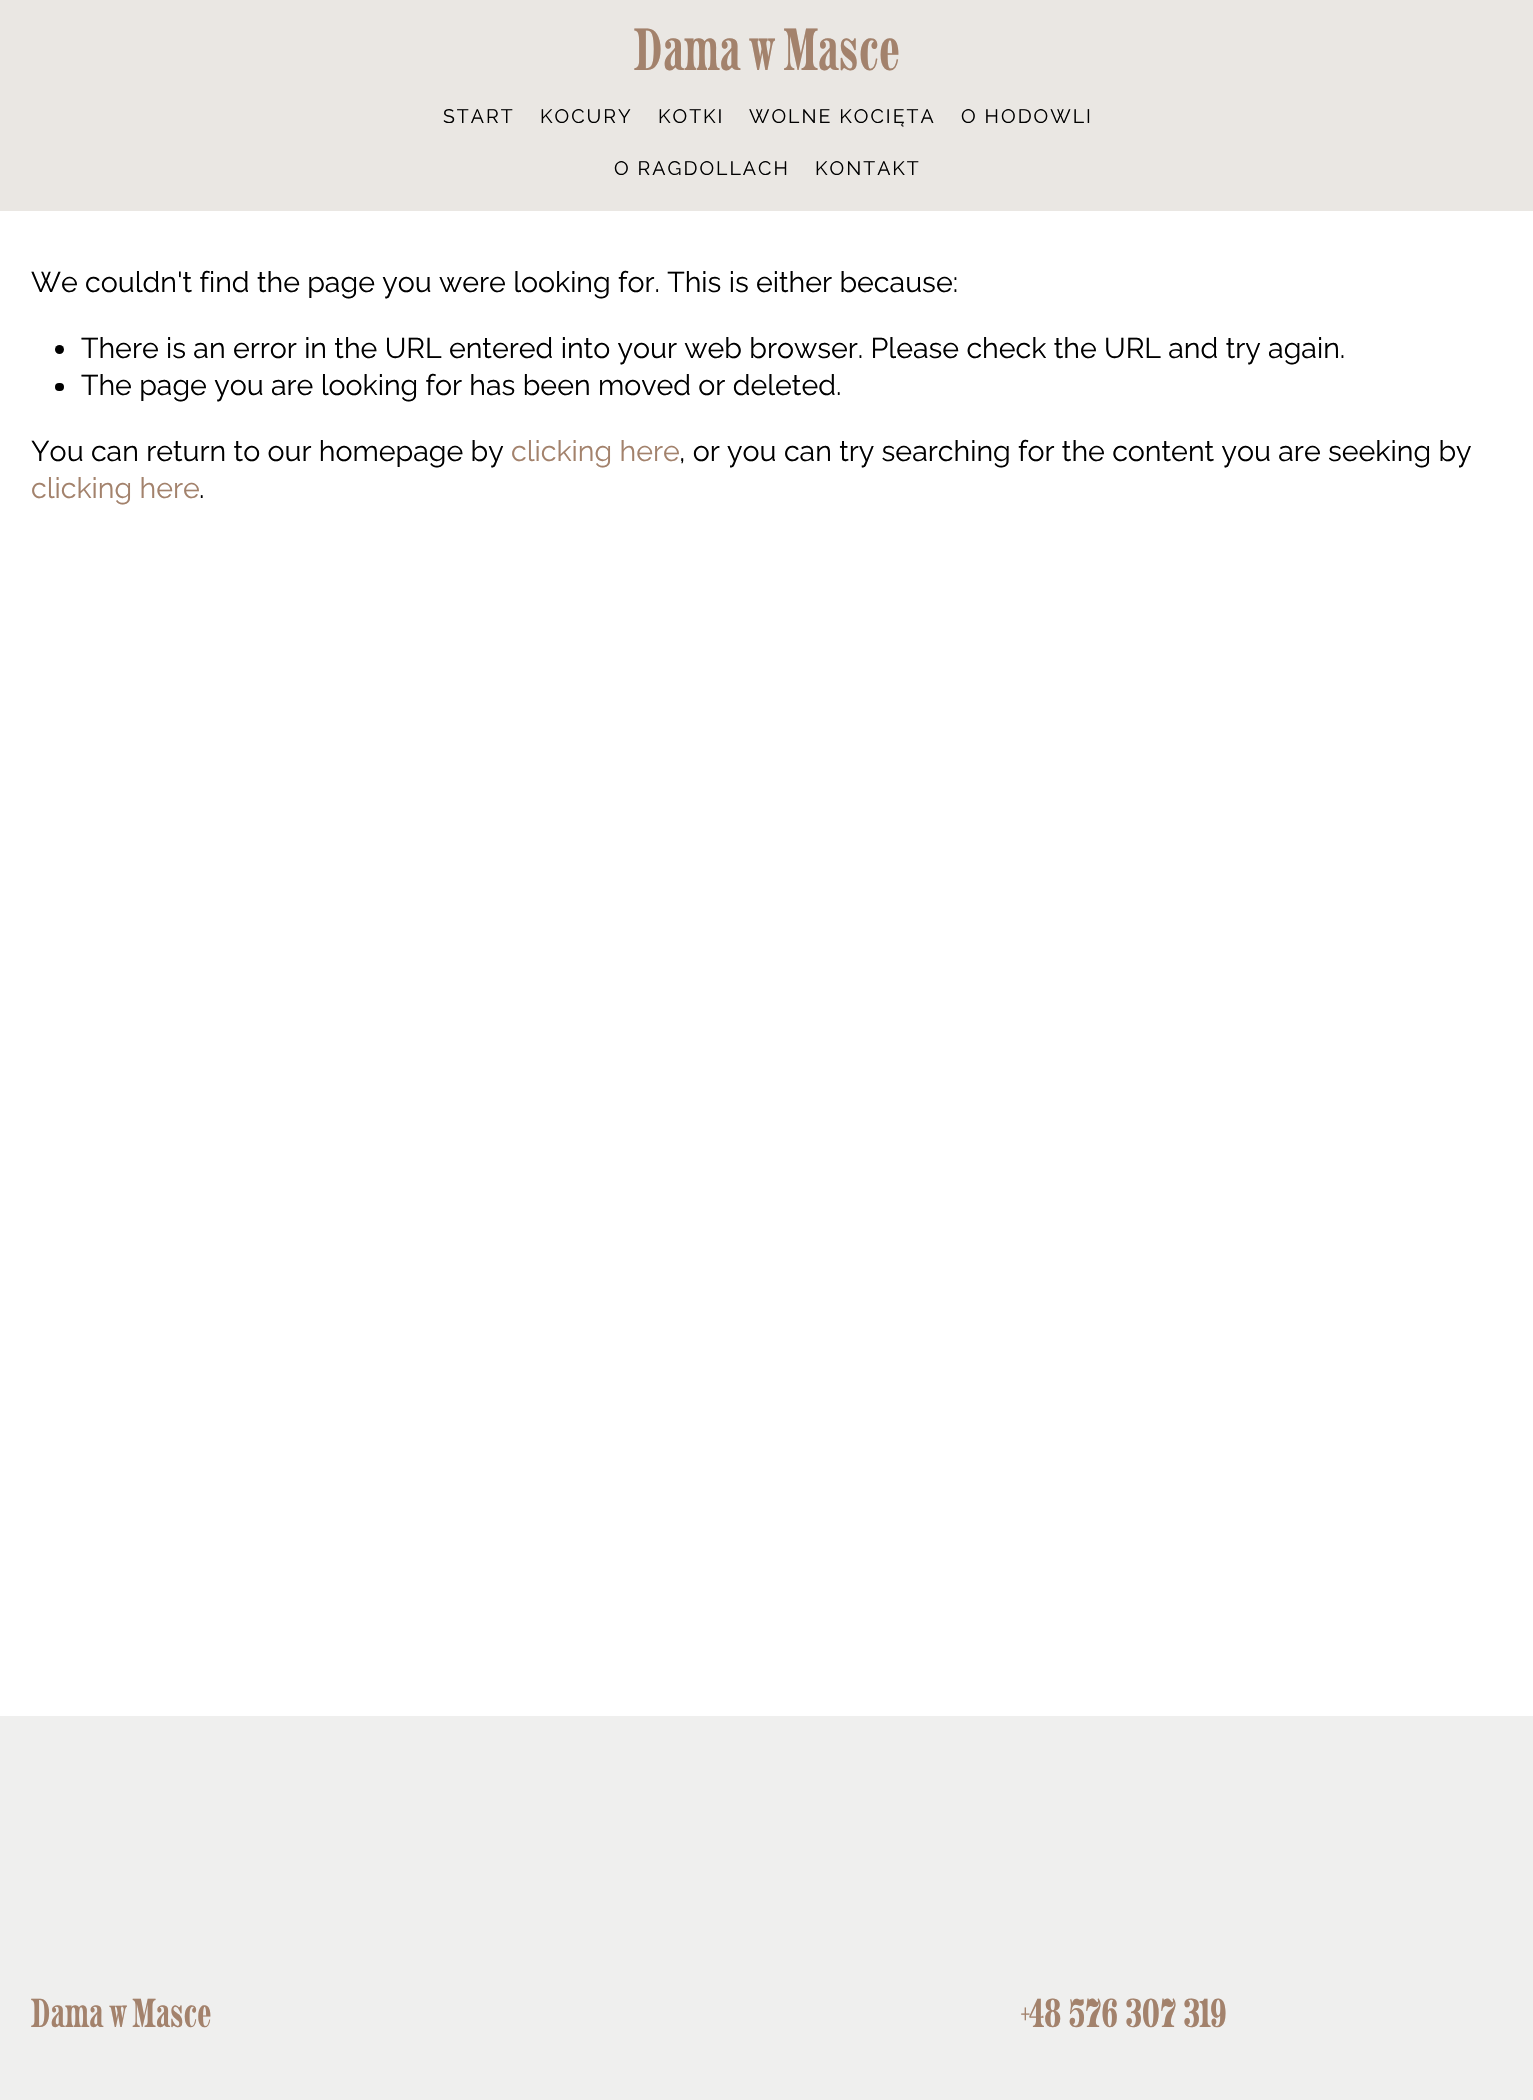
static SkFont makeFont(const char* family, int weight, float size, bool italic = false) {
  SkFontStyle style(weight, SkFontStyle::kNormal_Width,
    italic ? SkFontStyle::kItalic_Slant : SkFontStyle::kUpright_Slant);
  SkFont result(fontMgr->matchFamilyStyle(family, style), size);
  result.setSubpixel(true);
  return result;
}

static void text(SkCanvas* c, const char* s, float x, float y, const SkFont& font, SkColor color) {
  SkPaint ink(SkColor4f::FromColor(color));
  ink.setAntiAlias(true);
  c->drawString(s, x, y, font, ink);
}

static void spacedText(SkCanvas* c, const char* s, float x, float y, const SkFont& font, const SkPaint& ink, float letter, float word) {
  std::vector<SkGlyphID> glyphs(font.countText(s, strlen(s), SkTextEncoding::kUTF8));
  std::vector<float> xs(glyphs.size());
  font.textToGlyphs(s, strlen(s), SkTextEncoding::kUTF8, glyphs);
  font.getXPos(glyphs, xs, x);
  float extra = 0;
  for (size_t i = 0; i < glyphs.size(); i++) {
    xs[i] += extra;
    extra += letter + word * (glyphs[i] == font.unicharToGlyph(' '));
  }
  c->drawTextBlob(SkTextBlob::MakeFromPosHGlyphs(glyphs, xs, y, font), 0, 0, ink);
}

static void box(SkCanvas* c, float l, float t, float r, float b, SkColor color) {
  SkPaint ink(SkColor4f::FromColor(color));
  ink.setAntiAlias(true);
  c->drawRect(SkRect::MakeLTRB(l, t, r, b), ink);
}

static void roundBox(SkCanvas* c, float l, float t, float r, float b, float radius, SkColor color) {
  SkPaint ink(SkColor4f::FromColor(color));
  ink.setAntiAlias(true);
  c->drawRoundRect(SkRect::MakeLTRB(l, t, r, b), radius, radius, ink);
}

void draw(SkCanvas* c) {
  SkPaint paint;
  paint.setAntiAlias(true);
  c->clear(0xffffffff);
  box(c, 0, 0, 1533, 211, 0xffeae7e3);
  SkFont face1 = makeFont("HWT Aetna", 400, 58);
  paint.setColor(0xffa3826c);
  spacedText(c, "Dama w Masce", 634, 70, face1, paint, -0.5f, 0);
  SkFont face2 = makeFont("Raleway", 400, 19.5f);
  paint.setColor(0xff000000);
  spacedText(c, "START", 443, 123, face2, paint, 2, 0);
  spacedText(c, "KOCURY", 540, 123, face2, paint, 2, 0);
  spacedText(c, "KOTKI", 658, 123, face2, paint, 2, 0);
  spacedText(c, "WOLNE KOCIĘTA", 749, 123, face2, paint, 2, 0);
  spacedText(c, "O HODOWLI", 961, 123, face2, paint, 2, 0);
  spacedText(c, "O RAGDOLLACH", 614, 175, face2, paint, 2, 0);
  spacedText(c, "KONTAKT", 815, 175, face2, paint, 2, 0);
  SkFont face3 = makeFont("Raleway", 400, 28.6f);
  text(c, "We couldn't find the page you were looking for. This is either because:", 31, 292, face3, 0xff000000);
  c->drawCircle(59.5f, 349.5f, 4.5f, paint);
  text(c, "There is an error in the URL entered into your web browser. Please check the URL and try again.", 81, 358, face3, 0xff000000);
  roundBox(c, 55, 383, 64, 391, 4, 0xff000000);
  text(c, "The page you are looking for has been moved or deleted.", 81, 395, face3, 0xff000000);
  text(c, "You can return to our homepage by", 31, 461, face3, 0xff000000);
  text(c, "clicking here", 511, 461, face3, 0xffa3826c);
  text(c, ", or you can try searching for the content you are seeking by", 679, 461, face3, 0xff000000);
  text(c, "clicking here", 31, 498, face3, 0xffa3826c);
  text(c, ".", 199, 498, face3, 0xff000000);
  box(c, 0, 1716, 1533, 2100, 0xffefefee);
  SkFont face4 = makeFont("HWT Aetna", 400, 39.5f);
  paint.setColor(0xffa3826c);
  spacedText(c, "Dama w Masce", 31, 2027, face4, paint, -0.4f, 0);
  spacedText(c, "+48 576 307 319", 1021, 2027, face4, paint, -0.4f, 0);
}
